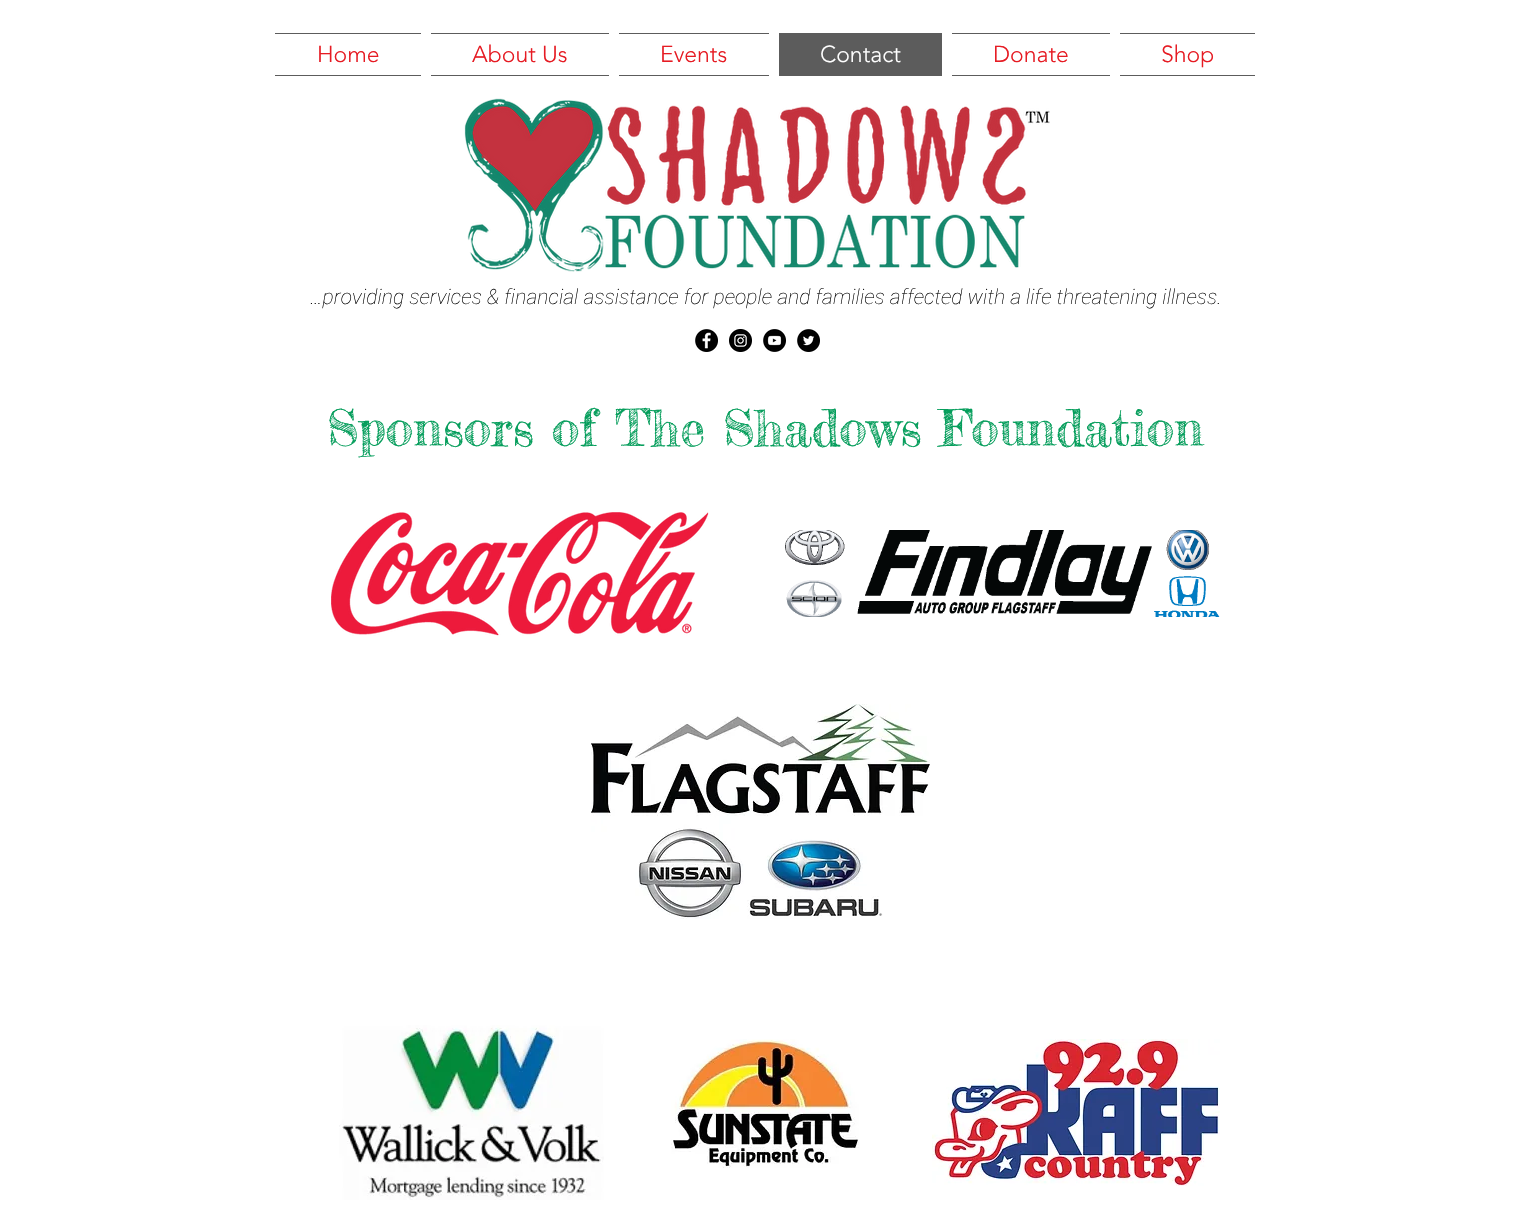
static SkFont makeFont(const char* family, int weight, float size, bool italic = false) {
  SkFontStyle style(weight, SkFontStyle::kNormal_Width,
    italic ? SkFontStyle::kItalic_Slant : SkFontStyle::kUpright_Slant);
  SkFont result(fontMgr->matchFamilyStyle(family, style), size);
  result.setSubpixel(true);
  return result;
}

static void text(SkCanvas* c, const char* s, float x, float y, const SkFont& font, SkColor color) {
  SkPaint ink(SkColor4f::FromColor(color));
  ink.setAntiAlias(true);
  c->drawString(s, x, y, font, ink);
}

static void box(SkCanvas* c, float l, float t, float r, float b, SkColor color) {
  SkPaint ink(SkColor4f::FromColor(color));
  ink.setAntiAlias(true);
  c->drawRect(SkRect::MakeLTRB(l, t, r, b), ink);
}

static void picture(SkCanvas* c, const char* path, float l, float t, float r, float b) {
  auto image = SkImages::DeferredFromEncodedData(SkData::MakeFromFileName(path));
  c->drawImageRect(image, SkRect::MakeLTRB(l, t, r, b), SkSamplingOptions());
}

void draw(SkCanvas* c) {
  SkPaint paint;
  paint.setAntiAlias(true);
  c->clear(0xffffffff);
  box(c, 275, 33, 421, 34, 0xff5c5c5c);
  box(c, 275, 75, 421, 76, 0xff5c5c5c);
  SkFont face1 = makeFont("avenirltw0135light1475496", 300, 23);
  text(c, "Home", 317, 62, face1, 0xffe61b23);
  box(c, 431, 33, 609, 34, 0xff5c5c5c);
  box(c, 431, 75, 609, 76, 0xff5c5c5c);
  text(c, "About Us", 472, 62, face1, 0xffe61b23);
  box(c, 619, 33, 769, 34, 0xff5c5c5c);
  box(c, 619, 75, 769, 76, 0xff5c5c5c);
  text(c, "Events", 660, 62, face1, 0xffe61b23);
  box(c, 779, 33, 942, 76, 0xff5c5c5c);
  text(c, "Contact", 820, 62, face1, 0xffffffff);
  box(c, 952, 33, 1110, 34, 0xff5c5c5c);
  box(c, 952, 75, 1110, 76, 0xff5c5c5c);
  text(c, "Donate", 993, 62, face1, 0xffe61b23);
  box(c, 1120, 33, 1255, 34, 0xff5c5c5c);
  box(c, 1120, 75, 1255, 76, 0xff5c5c5c);
  text(c, "Shop", 1161, 62, face1, 0xffe61b23);
  picture(c, "img_01.png", 464, 98, 1050, 272);
  SkFont face2 = makeFont("Roboto", 100, 21, true);
  text(c, "…providing services & financial assistance for people and families affected with a life threatening illness.", 310, 304, face2, 0xff000000);
  picture(c, "img_02.png", 695, 329, 718, 352);
  picture(c, "img_03.png", 729, 329, 752, 352);
  picture(c, "img_04.png", 763, 329, 786, 352);
  picture(c, "img_05.png", 797, 329, 820, 352);
  SkFont face3 = makeFont("Fredericka the Great", 400, 50);
  text(c, "Sponsors of The Shadows Foundation", 327, 446, face3, 0xff069e5c);
  picture(c, "img_06.png", 331, 512, 709, 636);
  picture(c, "img_07.png", 785, 530, 1220, 617);
  picture(c, "img_08.png", 591, 704, 930, 919);
  picture(c, "img_09.png", 339, 1025, 604, 1200);
  picture(c, "img_10.png", 671, 1039, 859, 1168);
  picture(c, "img_11.png", 932, 1039, 1220, 1186);
}
